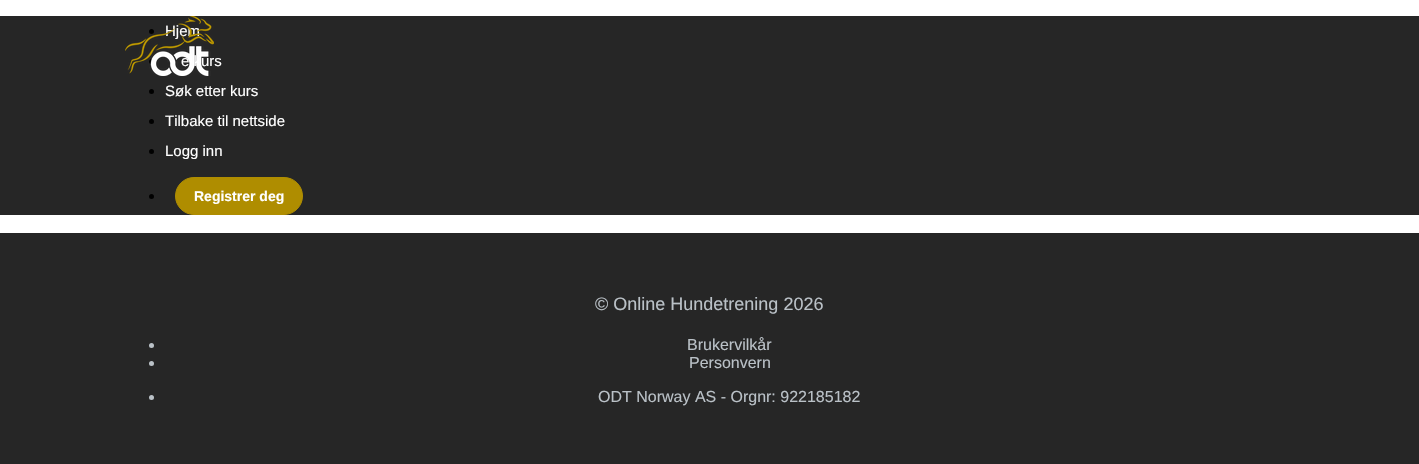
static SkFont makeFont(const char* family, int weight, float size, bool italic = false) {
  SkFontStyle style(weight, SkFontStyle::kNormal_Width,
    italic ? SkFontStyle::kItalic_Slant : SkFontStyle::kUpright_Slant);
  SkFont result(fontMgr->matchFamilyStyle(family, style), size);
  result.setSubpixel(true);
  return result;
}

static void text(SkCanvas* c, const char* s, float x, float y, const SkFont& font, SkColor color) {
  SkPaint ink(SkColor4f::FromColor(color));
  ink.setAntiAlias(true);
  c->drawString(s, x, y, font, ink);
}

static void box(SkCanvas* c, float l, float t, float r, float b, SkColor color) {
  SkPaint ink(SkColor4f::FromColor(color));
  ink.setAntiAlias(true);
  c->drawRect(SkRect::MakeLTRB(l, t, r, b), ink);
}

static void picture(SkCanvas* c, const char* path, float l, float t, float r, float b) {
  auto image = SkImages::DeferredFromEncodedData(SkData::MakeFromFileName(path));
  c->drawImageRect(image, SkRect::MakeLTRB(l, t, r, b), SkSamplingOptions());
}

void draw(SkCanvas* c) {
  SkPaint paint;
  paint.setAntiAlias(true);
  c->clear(0xffffffff);
  box(c, 0, 16, 1419, 215, 0xff262626);
  paint.setColor(0xff000000);
  c->drawCircle(151.5f, 31.5f, 2.5f, paint);
  SkFont face1 = makeFont("Liberation Sans", 400, 15);
  text(c, "Hjem", 165, 36, face1, 0xffffffff);
  c->drawCircle(151.5f, 61.5f, 2.5f, paint);
  text(c, "e kurs", 181, 66, face1, 0xffffffff);
  picture(c, "img_01.png", 125, 16, 214, 76);
  c->drawCircle(151.5f, 91.5f, 2.5f, paint);
  text(c, "Søk etter kurs", 165, 96, face1, 0xffffffff);
  c->drawCircle(151.5f, 121.5f, 2.5f, paint);
  text(c, "Tilbake til nettside", 165, 126, face1, 0xffffffff);
  c->drawCircle(151.5f, 151.5f, 2.5f, paint);
  text(c, "Logg inn", 165, 156, face1, 0xffffffff);
  c->drawCircle(151.5f, 196.5f, 2.5f, paint);
  paint.setColor(0xffaf8d00);
  c->drawRoundRect(SkRect::MakeLTRB(175.5f, 177.5f, 302.5f, 214.5f), 18.5f, 18.5f, paint);
  paint.setStyle(SkPaint::kStroke_Style);
  paint.setStrokeWidth(1);
  c->drawRoundRect(SkRect::MakeLTRB(175.5f, 177.5f, 302.5f, 214.5f), 18.5f, 18.5f, paint);
  SkFont face2 = makeFont("Liberation Sans", 700, 14);
  text(c, "Registrer deg", 194, 201, face2, 0xffffffff);
  box(c, 0, 233, 1419, 464, 0xff262626);
  SkFont face3 = makeFont("Liberation Sans", 400, 18);
  text(c, "© Online Hundetrening 2026", 595, 310, face3, 0xffbac1c7);
  paint.setStyle(SkPaint::kFill_Style);
  paint.setColor(0xffbac1c7);
  c->drawCircle(151.5f, 345.5f, 2.5f, paint);
  SkFont face4 = makeFont("Liberation Sans", 400, 16);
  text(c, "Brukervilkår", 687, 350, face4, 0xffbac1c7);
  c->drawCircle(151.5f, 363.5f, 2.5f, paint);
  text(c, "Personvern", 689, 368, face4, 0xffbac1c7);
  c->drawCircle(151.5f, 397.5f, 2.5f, paint);
  text(c, "ODT Norway AS - Orgnr: 922185182", 598, 402, face4, 0xffbac1c7);
}
